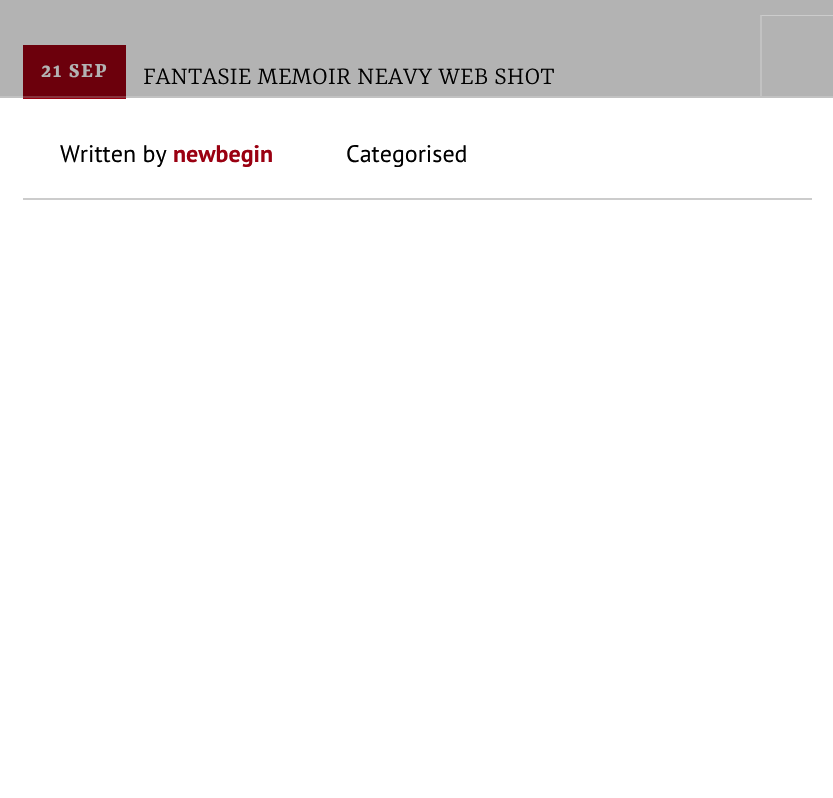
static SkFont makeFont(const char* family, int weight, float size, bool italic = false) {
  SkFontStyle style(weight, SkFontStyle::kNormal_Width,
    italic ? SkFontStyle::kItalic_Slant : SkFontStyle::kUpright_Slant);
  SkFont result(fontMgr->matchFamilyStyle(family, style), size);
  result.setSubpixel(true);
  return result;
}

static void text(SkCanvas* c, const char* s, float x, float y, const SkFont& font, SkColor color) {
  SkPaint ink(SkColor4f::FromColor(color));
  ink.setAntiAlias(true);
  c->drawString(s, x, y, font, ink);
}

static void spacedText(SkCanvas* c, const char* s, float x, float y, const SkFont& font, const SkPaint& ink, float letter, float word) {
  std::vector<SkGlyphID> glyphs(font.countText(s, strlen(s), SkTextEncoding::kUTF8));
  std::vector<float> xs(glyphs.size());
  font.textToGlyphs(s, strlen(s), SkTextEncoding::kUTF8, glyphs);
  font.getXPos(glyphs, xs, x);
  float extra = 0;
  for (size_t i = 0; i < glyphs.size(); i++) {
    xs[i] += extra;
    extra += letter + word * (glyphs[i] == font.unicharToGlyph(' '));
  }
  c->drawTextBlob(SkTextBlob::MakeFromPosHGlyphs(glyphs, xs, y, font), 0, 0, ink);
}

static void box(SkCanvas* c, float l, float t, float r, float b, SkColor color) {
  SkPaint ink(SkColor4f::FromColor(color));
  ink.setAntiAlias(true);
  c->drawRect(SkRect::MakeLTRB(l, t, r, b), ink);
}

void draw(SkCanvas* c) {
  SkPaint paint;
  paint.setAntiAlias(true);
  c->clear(0xffffffff);
  box(c, 0, 0, 833, 96, 0xffb3b3b3);
  box(c, 0, 96, 833, 98, 0xffc2c2c2);
  box(c, 23, 98, 126, 99, 0xff9a0011);
  box(c, 23, 45, 126, 96, 0xff6c000c);
  box(c, 23, 96, 126, 98, 0xff89333d);
  SkFont face1 = makeFont("Yrsa", 700, 22.5f);
  paint.setColor(0xffb3b3b3);
  spacedText(c, "21 SEP", 41, 77, face1, paint, 1.5f, 0);
  SkFont face2 = makeFont("Yrsa", 300, 27);
  text(c, "FANTASIE MEMOIR NEAVY WEB SHOT", 143, 84, face2, 0xff000000);
  SkFont face3 = makeFont("PT Sans", 400, 24);
  text(c, "Written by", 60, 162, face3, 0xff000000);
  SkFont face4 = makeFont("PT Sans", 700, 24);
  text(c, "newbegin", 173, 162, face4, 0xff9a0011);
  text(c, "Categorised", 346, 162, face3, 0xff000000);
  box(c, 23, 198, 812, 200, 0xffcccccc);
  paint.setColor(0xffcccccc);
  c->drawPath(SkPathBuilder().moveTo(760, 15).lineTo(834, 15).lineTo(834, 16).lineTo(762, 16).close().detach(), paint);
  c->save();
  c->clipRect(SkRect::MakeLTRB(0, 0, 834, 96));
  paint.setColor(0x33ffffff);
  c->drawPath(SkPathBuilder().moveTo(760, 98).lineTo(760, 15).lineTo(762, 16).lineTo(762, 98).close().detach(), paint);
  c->restore();
}
